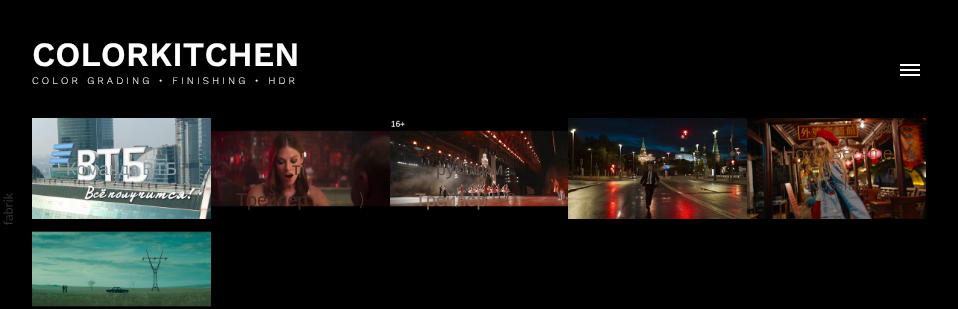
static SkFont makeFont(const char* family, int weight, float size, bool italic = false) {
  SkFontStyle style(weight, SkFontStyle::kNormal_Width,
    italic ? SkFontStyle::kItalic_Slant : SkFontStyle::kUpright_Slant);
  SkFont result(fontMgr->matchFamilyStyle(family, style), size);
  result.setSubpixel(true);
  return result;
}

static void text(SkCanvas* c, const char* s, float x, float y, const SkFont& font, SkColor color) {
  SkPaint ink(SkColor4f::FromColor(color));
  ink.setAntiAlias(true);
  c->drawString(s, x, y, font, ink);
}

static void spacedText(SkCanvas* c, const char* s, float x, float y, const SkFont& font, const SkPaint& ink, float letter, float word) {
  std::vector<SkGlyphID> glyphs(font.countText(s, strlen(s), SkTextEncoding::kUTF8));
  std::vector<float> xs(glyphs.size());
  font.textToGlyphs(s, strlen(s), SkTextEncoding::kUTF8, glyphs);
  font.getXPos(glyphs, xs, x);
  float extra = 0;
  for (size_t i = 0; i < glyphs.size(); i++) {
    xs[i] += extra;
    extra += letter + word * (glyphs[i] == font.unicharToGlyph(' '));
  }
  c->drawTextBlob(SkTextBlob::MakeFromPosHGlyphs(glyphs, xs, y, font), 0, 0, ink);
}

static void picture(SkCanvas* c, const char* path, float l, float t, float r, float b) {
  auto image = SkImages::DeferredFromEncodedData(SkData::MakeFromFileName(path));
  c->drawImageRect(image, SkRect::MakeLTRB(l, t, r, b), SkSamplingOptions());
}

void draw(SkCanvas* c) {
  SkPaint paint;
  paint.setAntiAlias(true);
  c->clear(0xff000000);
  picture(c, "img_01.png", 3, 193, 13, 225);
  SkFont face1 = makeFont("Work Sans", 600, 34);
  text(c, "COLORKITCHEN", 32, 66, face1, 0xffffffff);
  SkFont face2 = makeFont("Work Sans", 300, 10);
  paint.setColor(0xffffffff);
  spacedText(c, "COLOR GRADING • FINISHING • HDR", 32, 84, face2, paint, 3.1f, 0);
  picture(c, "img_02.png", 900, 64, 921, 76);
  picture(c, "img_03.png", 32, 118, 211, 219);
  SkFont face3 = makeFont("Liberation Sans", 400, 18);
  paint.setColor(0xff8c9b9e);
  spacedText(c, "Команда ВТБ", 66, 175, face3, paint, 0, -2);
  picture(c, "img_04.png", 211, 118, 390, 219);
  text(c, "т", 292, 175, face3, 0xff592d28);
  text(c, "Трейлер", 236, 206, face3, 0xff44251f);
  SkFont face4 = makeFont("Lato", 300, 18);
  text(c, ")", 359, 206, face4, 0xff4d3529);
  picture(c, "img_05.png", 390, 118, 568, 219);
  text(c, "русским", 436, 175, face3, 0xff594941);
  text(c, "Трейлер", 415, 206, face3, 0xff836558);
  text(c, "0", 506, 206, face4, 0xff713f32);
  picture(c, "img_06.png", 568, 118, 747, 219);
  picture(c, "img_07.png", 747, 118, 926, 219);
  text(c, "How I Became", 782, 159, face4, 0xff774b38);
  text(c, "Russian", 807, 190, face4, 0xff443a33);
  picture(c, "img_08.png", 32, 219, 211, 309);
}
